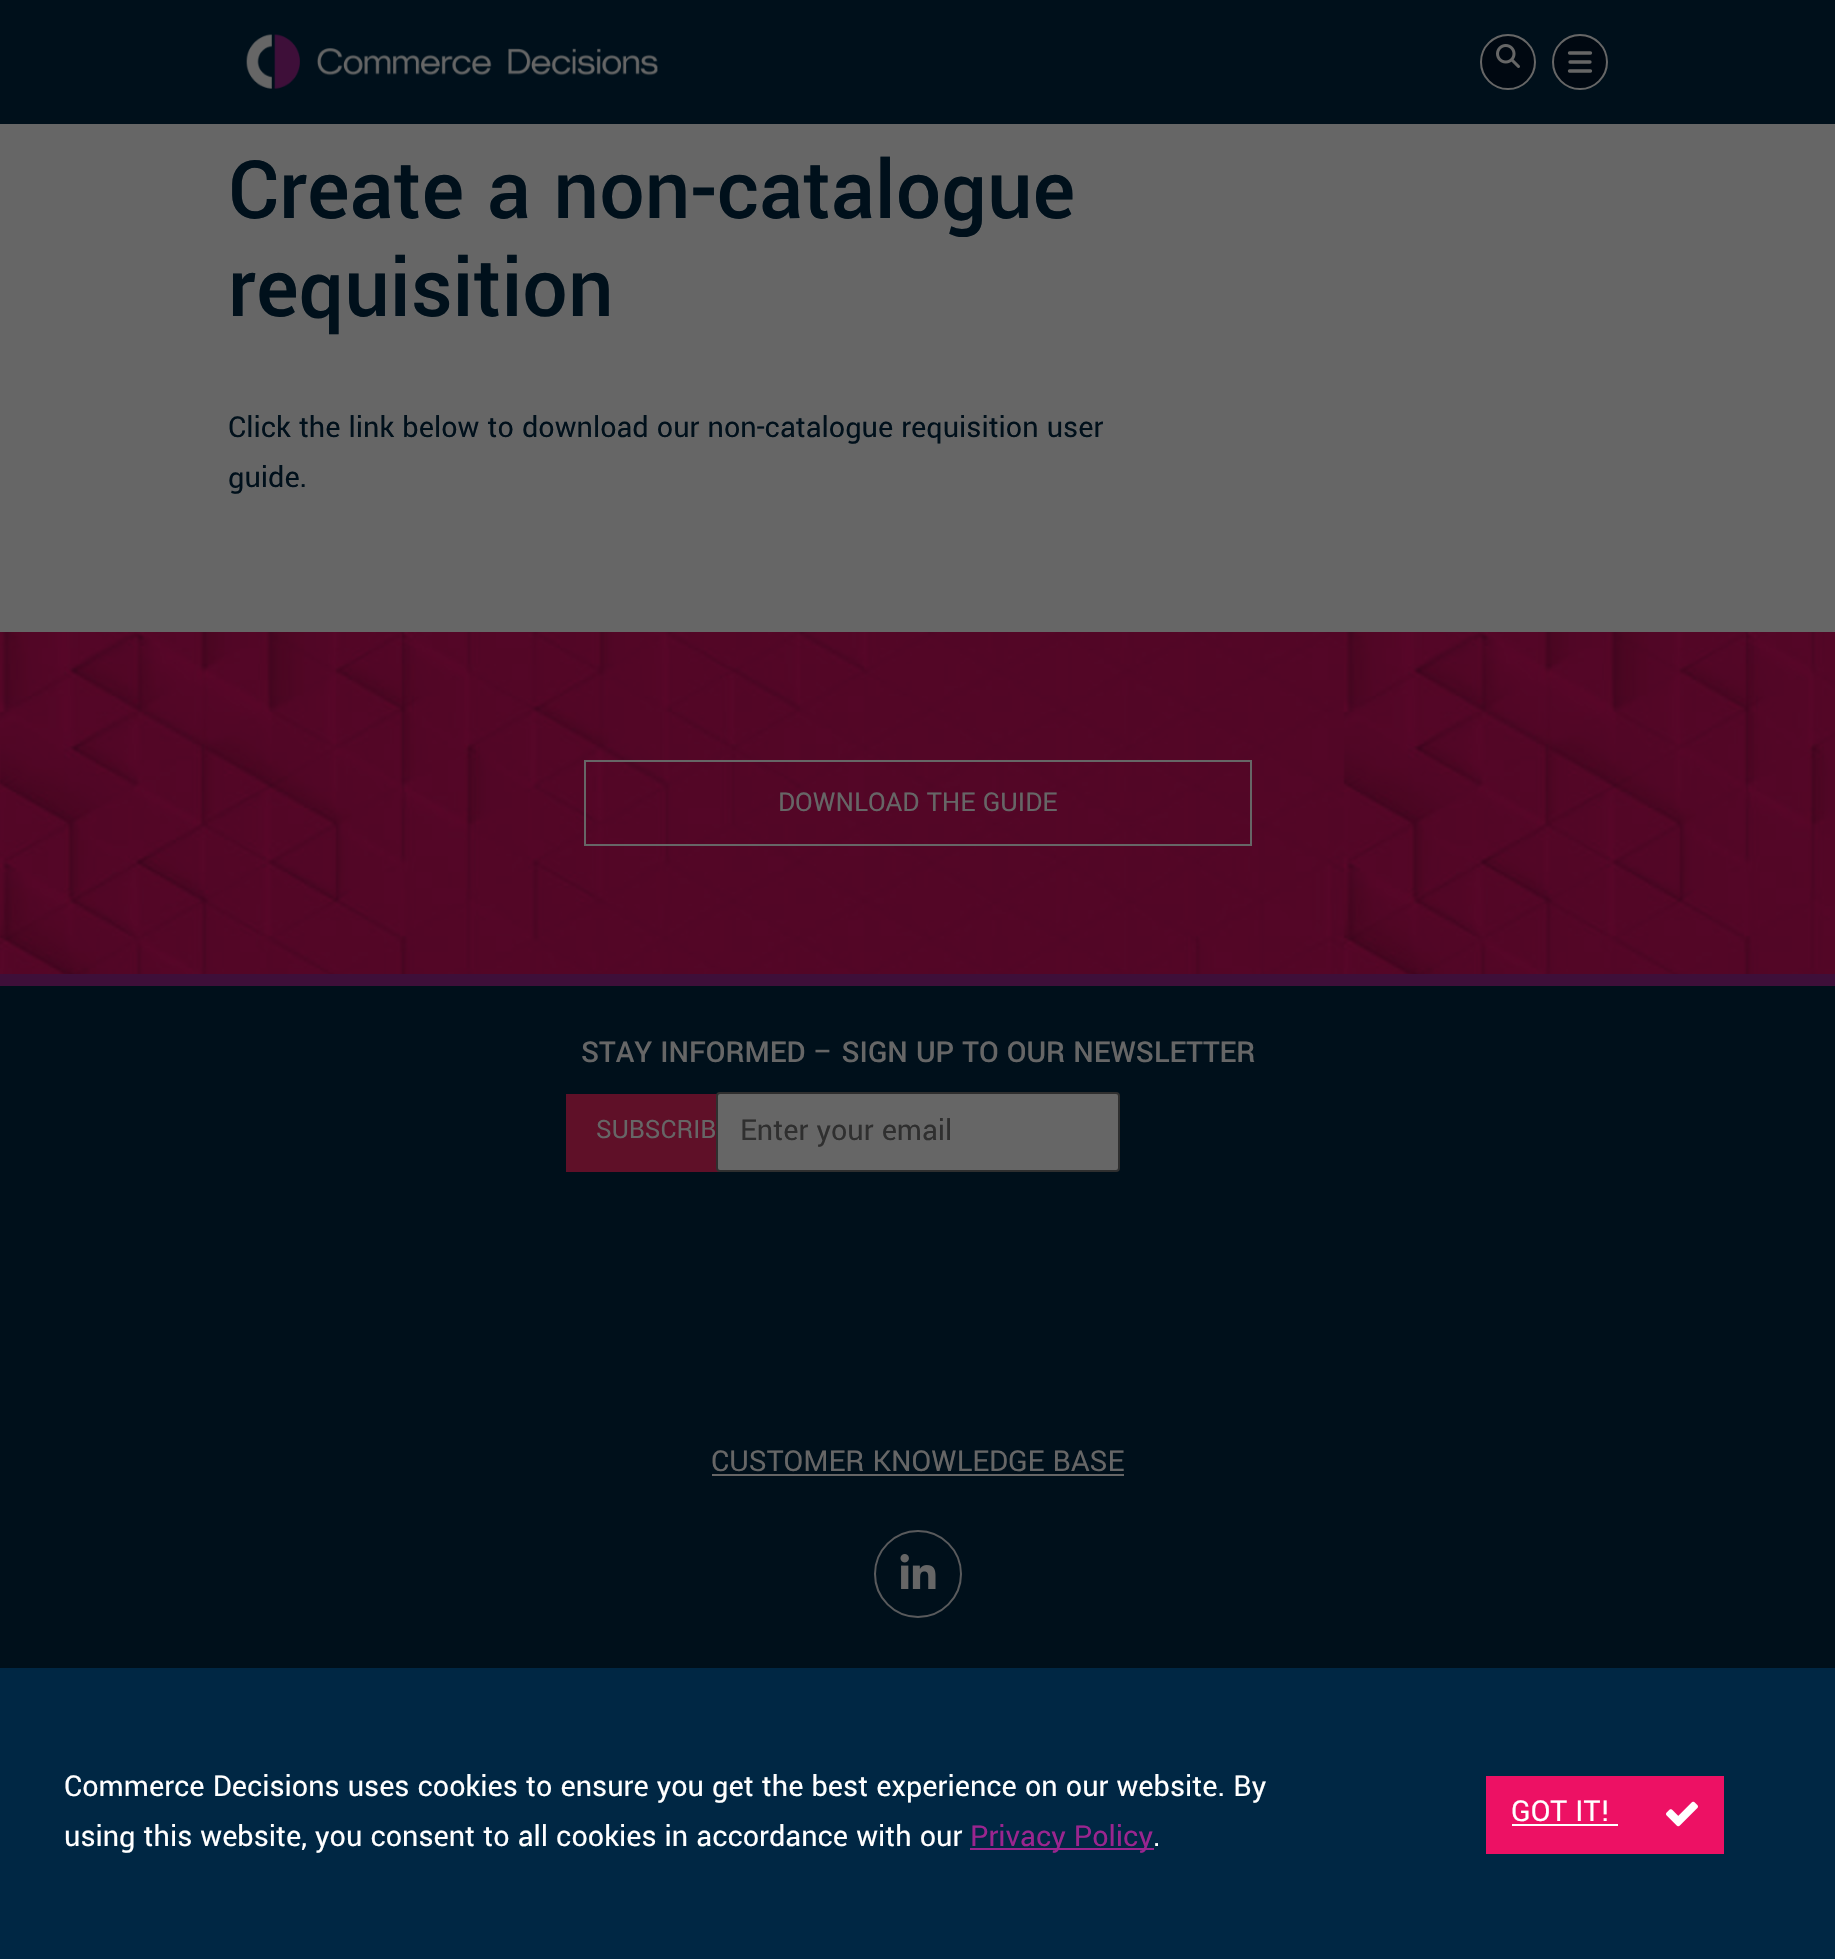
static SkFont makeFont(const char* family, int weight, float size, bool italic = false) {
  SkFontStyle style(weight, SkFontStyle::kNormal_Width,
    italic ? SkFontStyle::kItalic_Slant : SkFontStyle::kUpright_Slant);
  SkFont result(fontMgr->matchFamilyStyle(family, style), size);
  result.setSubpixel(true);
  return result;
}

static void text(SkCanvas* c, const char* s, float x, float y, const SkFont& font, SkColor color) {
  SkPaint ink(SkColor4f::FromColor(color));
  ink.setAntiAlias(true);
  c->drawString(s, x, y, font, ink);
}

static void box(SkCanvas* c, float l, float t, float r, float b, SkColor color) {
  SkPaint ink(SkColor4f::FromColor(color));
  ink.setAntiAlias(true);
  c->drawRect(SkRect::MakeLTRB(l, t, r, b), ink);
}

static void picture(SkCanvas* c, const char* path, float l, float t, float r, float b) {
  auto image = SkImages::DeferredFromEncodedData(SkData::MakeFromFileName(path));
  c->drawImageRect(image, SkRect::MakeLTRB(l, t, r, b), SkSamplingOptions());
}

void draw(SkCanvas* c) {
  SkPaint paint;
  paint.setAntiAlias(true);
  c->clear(0xff666666);
  box(c, 0, 0, 1835, 124, 0xff00101b);
  picture(c, "img_01.png", 246, 34, 658, 89);
  paint.setColor(0xff000811);
  c->drawCircle(1508, 62, 27, paint);
  paint.setStyle(SkPaint::kStroke_Style);
  paint.setStrokeWidth(2);
  paint.setColor(0xff666666);
  c->drawCircle(1508, 62, 27, paint);
  picture(c, "img_02.png", 1496, 44, 1520, 68);
  paint.setStyle(SkPaint::kFill_Style);
  paint.setColor(0xff000811);
  c->drawCircle(1580, 62, 27, paint);
  paint.setStyle(SkPaint::kStroke_Style);
  paint.setColor(0xff666666);
  c->drawCircle(1580, 62, 27, paint);
  paint.setStrokeWidth(3.3f);
  paint.setStrokeCap(SkPaint::kRound_Cap);
  c->drawPath(SkPathBuilder().moveTo(1590.5f, 71).lineTo(1569.5f, 71).moveTo(1590, 62).lineTo(1570, 62).moveTo(1590.5f, 53).lineTo(1569.5f, 53).detach(), paint);
  SkFont face1 = makeFont("Yantramanav", 500, 89.5f);
  text(c, "Create a non-catalogue", 228, 218, face1, 0xff00101b);
  text(c, "requisition", 228, 316, face1, 0xff00101b);
  SkFont face2 = makeFont("Yantramanav", 400, 32);
  text(c, "Click the link below to download our non-catalogue requisition user", 228, 437, face2, 0xff00101b);
  text(c, "guide.", 228, 487, face2, 0xff00101b);
  picture(c, "img_03.png", 0, 632, 1835, 974);
  paint.setStrokeWidth(2);
  paint.setStrokeCap(SkPaint::kButt_Cap);
  c->drawRect(SkRect::MakeLTRB(585, 761, 1251, 845), paint);
  SkFont face3 = makeFont("Yantramanav", 400, 28.75f);
  text(c, "DOWNLOAD THE GUIDE", 778, 811, face3, 0xff666666);
  box(c, 0, 1668, 1835, 1959, 0xff002744);
  box(c, 0, 986, 1835, 1668, 0xff00101b);
  box(c, 0, 974, 1835, 986, 0xff3e0f39);
  SkFont face4 = makeFont("Yantramanav", 500, 32);
  text(c, "STAY INFORMED – SIGN UP TO OUR NEWSLETTER", 581, 1062, face4, 0xff666666);
  box(c, 566, 1094, 720, 1172, 0xff5f1028);
  SkFont face5 = makeFont("Yantramanav", 400, 28);
  text(c, "SUBSCRIB", 596, 1138, face5, 0xff666666);
  paint.setStyle(SkPaint::kFill_Style);
  c->drawRoundRect(SkRect::MakeLTRB(717, 1093, 1119, 1171), 3, 3, paint);
  paint.setStyle(SkPaint::kStroke_Style);
  paint.setColor(0xff2f2f2f);
  c->drawRoundRect(SkRect::MakeLTRB(717, 1093, 1119, 1171), 3, 3, paint);
  text(c, "Enter your email", 740, 1140, face2, 0xff2f2f2f);
  text(c, "CUSTOMER KNOWLEDGE BASE", 711, 1471, face2, 0xff666666);
  box(c, 712, 1474, 1124, 1476, 0xff666666);
  paint.setColor(0xff595a5c);
  c->drawCircle(918, 1574, 43, paint);
  picture(c, "img_04.png", 900, 1554, 936, 1589);
  text(c, "Commerce Decisions uses cookies to ensure you get the best experience on our website. By", 64, 1796, face2, 0xffffffff);
  text(c, "using this website, you consent to all cookies in accordance with our", 64, 1846, face2, 0xffffffff);
  box(c, 970, 1848, 1154, 1850, 0xff9a258f);
  text(c, "Privacy Policy", 970, 1846, face2, 0xff9a258f);
  text(c, ".", 1153, 1846, face2, 0xffffffff);
  box(c, 1486, 1776, 1724, 1854, 0xffed1164);
  text(c, "GOT IT!", 1511, 1821, face2, 0xffffffff);
  box(c, 1512, 1824, 1618, 1826, 0xffffffff);
  picture(c, "img_05.png", 1666, 1801, 1698, 1827);
}
